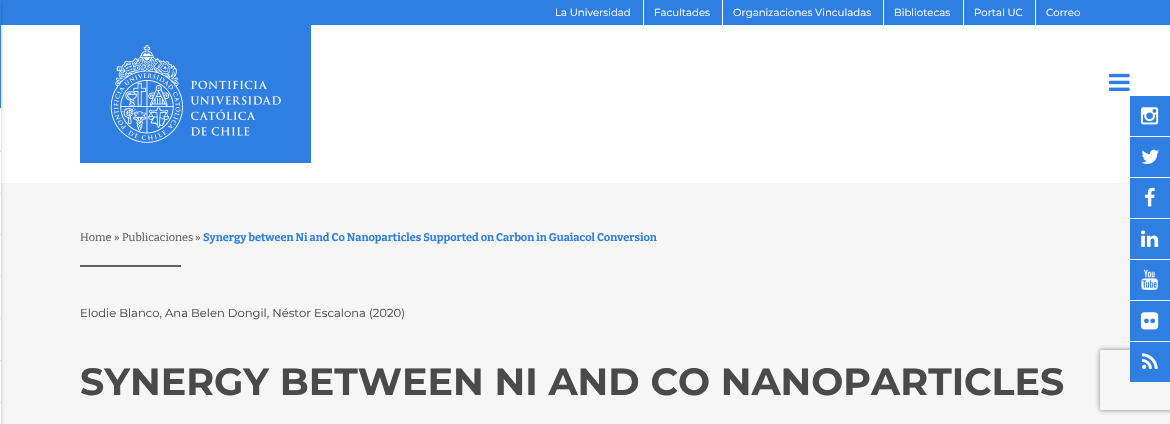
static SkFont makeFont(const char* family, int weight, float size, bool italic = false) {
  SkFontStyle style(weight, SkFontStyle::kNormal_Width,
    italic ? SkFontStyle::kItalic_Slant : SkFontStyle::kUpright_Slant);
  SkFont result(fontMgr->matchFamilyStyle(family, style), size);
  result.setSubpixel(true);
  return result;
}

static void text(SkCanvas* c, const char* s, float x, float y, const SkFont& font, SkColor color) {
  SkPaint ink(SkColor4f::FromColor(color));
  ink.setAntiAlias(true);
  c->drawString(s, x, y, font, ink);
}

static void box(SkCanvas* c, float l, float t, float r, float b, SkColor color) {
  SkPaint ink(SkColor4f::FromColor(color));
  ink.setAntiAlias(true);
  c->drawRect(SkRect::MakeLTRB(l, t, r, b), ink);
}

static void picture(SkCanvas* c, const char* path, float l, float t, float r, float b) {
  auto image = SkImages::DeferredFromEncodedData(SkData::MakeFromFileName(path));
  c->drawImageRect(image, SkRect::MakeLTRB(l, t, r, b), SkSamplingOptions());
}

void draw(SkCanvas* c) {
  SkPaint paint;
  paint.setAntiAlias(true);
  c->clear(0xfff6f6f7);
  box(c, 1, 25, 1170, 183, 0xffffffff);
  box(c, 1, 0, 1170, 25, 0xff2f7ee1);
  paint.setColor(0x1f000000);
  paint.setMaskFilter(SkMaskFilter::MakeBlur(kNormal_SkBlurStyle, 2.5f));
  c->drawRect(SkRect::MakeLTRB(-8, 1, 1, 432), paint);
  paint.setMaskFilter(nullptr);
  paint.setColor(0x24000000);
  paint.setMaskFilter(SkMaskFilter::MakeBlur(kNormal_SkBlurStyle, 1));
  c->drawRect(SkRect::MakeLTRB(-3, 2, 1, 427), paint);
  paint.setMaskFilter(nullptr);
  box(c, 0, 109, 1, 424, 0xffffffff);
  box(c, 0, 0, 1, 108, 0xff2f7ee1);
  box(c, 0, 108, 1, 109, 0xffe1e1e1);
  box(c, 0, 150, 1, 152, 0xffe1e1e1);
  box(c, 0, 193, 1, 194, 0xffe1e1e1);
  box(c, 0, 234, 1, 235, 0xffe1e1e1);
  box(c, 0, 276, 1, 277, 0xffe1e1e1);
  box(c, 0, 318, 1, 319, 0xffe1e1e1);
  box(c, 0, 360, 1, 361, 0xffe1e1e1);
  box(c, 0, 402, 1, 403, 0xffe1e1e1);
  SkFont face1 = makeFont("Montserrat", 400, 10.2f);
  text(c, "La Universidad", 555, 16, face1, 0xffffffff);
  box(c, 643, 0, 644, 25, 0xffffffff);
  text(c, "Facultades", 654, 16, face1, 0xffffffff);
  box(c, 722, 0, 723, 25, 0xffffffff);
  text(c, "Organizaciones Vinculadas", 733, 16, face1, 0xffffffff);
  box(c, 883, 0, 884, 25, 0xffffffff);
  text(c, "Bibliotecas", 894, 16, face1, 0xffffffff);
  box(c, 963, 0, 964, 25, 0xffffffff);
  text(c, "Portal UC", 974, 16, face1, 0xffffffff);
  box(c, 1035, 0, 1036, 25, 0xffffffff);
  text(c, "Correo", 1046, 16, face1, 0xffffffff);
  box(c, 80, 25, 311, 163, 0xff2f7ee1);
  picture(c, "img_01.png", 110, 45, 281, 143);
  picture(c, "img_02.png", 1109, 73, 1130, 91);
  SkFont face2 = makeFont("Bitter", 400, 11);
  text(c, "Home", 80, 241, face2, 0xff5c5c5c);
  text(c, "»", 114, 241, face2, 0xff4a4a4a);
  text(c, "Publicaciones", 122, 241, face2, 0xff5c5c5c);
  text(c, "»", 195, 241, face2, 0xff4a4a4a);
  SkFont face3 = makeFont("Bitter", 700, 11);
  text(c, "Synergy between Ni and Co Nanoparticles Supported on Carbon in Guaiacol Conversion", 203, 241, face3, 0xff2f7ee1);
  box(c, 80, 265, 181, 267, 0xff616161);
  SkFont face4 = makeFont("Montserrat", 400, 11.6f);
  text(c, "Elodie Blanco, Ana Belen Dongil, Néstor Escalona (2020)", 80, 317, face4, 0xff4a4a4a);
  SkFont face5 = makeFont("Montserrat", 700, 38);
  text(c, "SYNERGY BETWEEN NI AND CO NANOPARTICLES", 80, 395, face5, 0xff4a4a4a);
  box(c, 1130, 96, 1170, 136, 0xff2f7ee1);
  picture(c, "img_03.png", 1141, 107, 1159, 125);
  box(c, 1130, 137, 1170, 177, 0xff2f7ee1);
  picture(c, "img_04.png", 1141, 149, 1159, 164);
  box(c, 1130, 178, 1170, 218, 0xff2f7ee1);
  picture(c, "img_05.png", 1145, 187, 1155, 207);
  box(c, 1130, 219, 1170, 259, 0xff2f7ee1);
  picture(c, "img_06.png", 1141, 230, 1159, 247);
  box(c, 1130, 260, 1170, 300, 0xff2f7ee1);
  picture(c, "img_07.png", 1141, 269, 1158, 290);
  box(c, 1130, 301, 1170, 341, 0xff2f7ee1);
  picture(c, "img_08.png", 1141, 312, 1159, 330);
  c->save();
  c->clipPath(SkPathBuilder(SkPathFillType::kEvenOdd).moveTo(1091, 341).lineTo(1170, 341).lineTo(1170, 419).lineTo(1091, 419).close().moveTo(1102, 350).lineTo(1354, 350).cubicTo(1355, 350, 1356, 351, 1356, 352).lineTo(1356, 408).cubicTo(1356, 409, 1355, 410, 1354, 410).lineTo(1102, 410).cubicTo(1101, 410, 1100, 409, 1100, 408).lineTo(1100, 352).cubicTo(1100, 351, 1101, 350, 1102, 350).close().detach(), true);
  paint.setColor(0xff808080);
  paint.setMaskFilter(SkMaskFilter::MakeBlur(kNormal_SkBlurStyle, 2.5f));
  c->drawRoundRect(SkRect::MakeLTRB(1100, 350, 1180, 410), 2, 2, paint);
  paint.setMaskFilter(nullptr);
  c->restore();
  box(c, 1130, 342, 1170, 382, 0xff2f7ee1);
  picture(c, "img_09.png", 1142, 353, 1158, 369);
}
